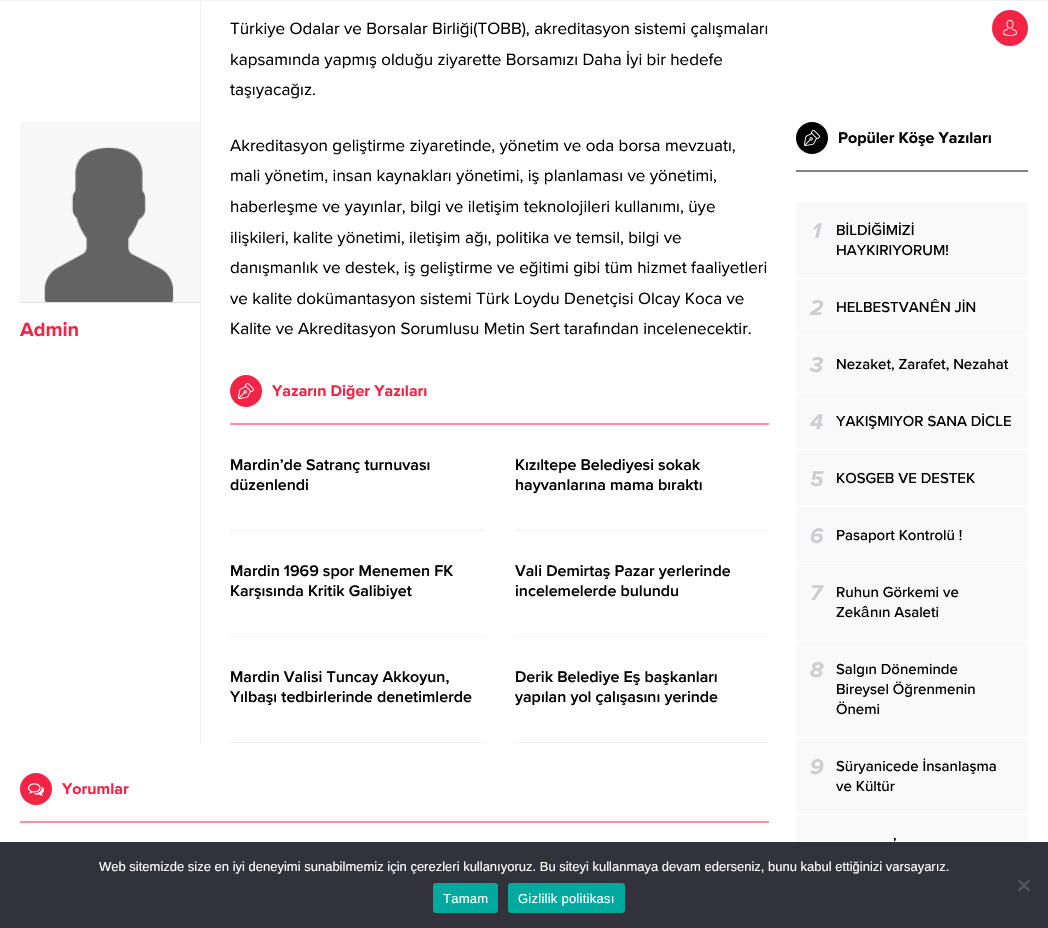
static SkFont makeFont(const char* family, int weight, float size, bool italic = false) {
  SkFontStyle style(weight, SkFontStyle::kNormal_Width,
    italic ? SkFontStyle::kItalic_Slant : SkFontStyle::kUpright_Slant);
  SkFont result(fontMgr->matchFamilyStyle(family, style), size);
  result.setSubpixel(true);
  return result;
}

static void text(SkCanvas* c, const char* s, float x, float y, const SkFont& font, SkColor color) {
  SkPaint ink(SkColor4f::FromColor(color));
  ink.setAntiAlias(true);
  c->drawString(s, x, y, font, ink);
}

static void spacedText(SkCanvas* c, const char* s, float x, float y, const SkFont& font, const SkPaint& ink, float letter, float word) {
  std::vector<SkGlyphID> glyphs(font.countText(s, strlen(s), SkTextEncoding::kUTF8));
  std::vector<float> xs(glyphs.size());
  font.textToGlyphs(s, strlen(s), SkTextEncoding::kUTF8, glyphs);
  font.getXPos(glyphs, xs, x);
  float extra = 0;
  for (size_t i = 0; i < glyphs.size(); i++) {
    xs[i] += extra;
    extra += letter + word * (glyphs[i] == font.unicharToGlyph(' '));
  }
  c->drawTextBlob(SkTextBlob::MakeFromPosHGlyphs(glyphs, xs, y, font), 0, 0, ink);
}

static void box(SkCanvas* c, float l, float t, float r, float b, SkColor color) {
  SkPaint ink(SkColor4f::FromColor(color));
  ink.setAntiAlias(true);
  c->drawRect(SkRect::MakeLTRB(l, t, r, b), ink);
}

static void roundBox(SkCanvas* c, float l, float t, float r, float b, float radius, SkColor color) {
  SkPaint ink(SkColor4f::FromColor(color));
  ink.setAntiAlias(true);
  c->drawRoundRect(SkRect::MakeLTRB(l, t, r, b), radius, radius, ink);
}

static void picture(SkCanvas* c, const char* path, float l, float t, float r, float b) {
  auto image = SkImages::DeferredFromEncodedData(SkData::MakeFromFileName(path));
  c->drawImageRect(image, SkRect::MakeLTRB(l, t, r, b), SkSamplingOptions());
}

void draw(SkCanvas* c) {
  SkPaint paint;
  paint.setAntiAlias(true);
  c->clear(0xffffffff);
  box(c, 0, 0, 1048, 1, 0xfff3f3f3);
  paint.setColor(0xfff42447);
  c->drawCircle(1010, 28, 18, paint);
  picture(c, "img_01.png", 1003, 20, 1017, 36);
  picture(c, "img_02.png", 200, 2, 201, 743);
  box(c, 20, 302, 200, 303, 0xffe0e0e0);
  picture(c, "img_03.png", 20, 122, 200, 302);
  SkFont face1 = makeFont("Proxima Nova", 700, 20);
  text(c, "Admin", 20, 336, face1, 0xfff42447);
  SkFont face2 = makeFont("Proxima Nova", 400, 17);
  text(c, "Türkiye Odalar ve Borsalar Birliği(TOBB), akreditasyon sistemi çalışmaları", 230, 34, face2, 0xff000000);
  text(c, "kapsamında yapmış olduğu ziyarette Borsamızı Daha İyi bir hedefe", 230, 65, face2, 0xff000000);
  text(c, "taşıyacağız.", 230, 95, face2, 0xff000000);
  text(c, "Akreditasyon geliştirme ziyaretinde, yönetim ve oda borsa mevzuatı,", 230, 151, face2, 0xff000000);
  text(c, "mali yönetim, insan kaynakları yönetimi, iş planlaması ve yönetimi,", 230, 181, face2, 0xff000000);
  text(c, "haberleşme ve yayınlar, bilgi ve iletişim teknolojileri kullanımı, üye", 230, 212, face2, 0xff000000);
  text(c, "ilişkileri, kalite yönetimi, iletişim ağı, politika ve temsil, bilgi ve", 230, 243, face2, 0xff000000);
  text(c, "danışmanlık ve destek, iş geliştirme ve eğitimi gibi tüm hizmet faaliyetleri", 230, 273, face2, 0xff000000);
  text(c, "ve kalite dokümantasyon sistemi Türk Loydu Denetçisi Olcay Koca ve", 230, 304, face2, 0xff000000);
  text(c, "Kalite ve Akreditasyon Sorumlusu Metin Sert tarafından incelenecektir.", 230, 334, face2, 0xff000000);
  c->drawCircle(246, 391, 16, paint);
  picture(c, "img_04.png", 238, 383, 254, 399);
  SkFont face3 = makeFont("Proxima Nova", 700, 16);
  text(c, "Yazarın Diğer Yazıları", 272, 396, face3, 0xfff42447);
  box(c, 230, 423, 769, 425, 0xfffa92a3);
  box(c, 230, 530, 485, 531, 0xfff1f1f1);
  SkFont face4 = makeFont("Proxima Nova", 600, 16);
  text(c, "Mardin’de Satranç turnuvası", 230, 470, face4, 0xff000000);
  text(c, "düzenlendi", 230, 490, face4, 0xff000000);
  box(c, 515, 530, 769, 531, 0xfff1f1f1);
  text(c, "Kızıltepe Belediyesi sokak", 515, 470, face4, 0xff000000);
  text(c, "hayvanlarına mama bıraktı", 515, 490, face4, 0xff000000);
  box(c, 230, 636, 485, 637, 0xfff1f1f1);
  text(c, "Mardin 1969 spor Menemen FK", 230, 576, face4, 0xff000000);
  text(c, "Karşısında Kritik Galibiyet", 230, 596, face4, 0xff000000);
  box(c, 515, 636, 769, 637, 0xfff1f1f1);
  text(c, "Vali Demirtaş Pazar yerlerinde", 515, 576, face4, 0xff000000);
  text(c, "incelemelerde bulundu", 515, 596, face4, 0xff000000);
  box(c, 230, 742, 485, 743, 0xfff1f1f1);
  text(c, "Mardin Valisi Tuncay Akkoyun,", 230, 682, face4, 0xff000000);
  text(c, "Yılbaşı tedbirlerinde denetimlerde", 230, 702, face4, 0xff000000);
  box(c, 515, 742, 769, 743, 0xfff1f1f1);
  text(c, "Derik Belediye Eş başkanları", 515, 682, face4, 0xff000000);
  text(c, "yapılan yol çalışasını yerinde", 515, 702, face4, 0xff000000);
  c->drawCircle(36, 789, 16, paint);
  picture(c, "img_05.png", 28, 783, 44, 796);
  text(c, "Yorumlar", 62, 794, face3, 0xfff42447);
  box(c, 20, 821, 769, 823, 0xfffa92a3);
  paint.setColor(0xff000000);
  c->drawCircle(812, 138, 16, paint);
  picture(c, "img_06.png", 804, 130, 820, 146);
  text(c, "Popüler Köşe Yazıları", 838, 143, face3, 0xff000000);
  box(c, 796, 170, 1028, 172, 0xff808080);
  box(c, 796, 202, 1028, 278, 0xfff9f9f9);
  SkFont face5 = makeFont("Proxima Nova", 700, 22, true);
  text(c, "1", 812, 238, face5, 0xffcdced2);
  SkFont face6 = makeFont("Proxima Nova", 500, 15);
  text(c, "BİLDİĞİMİZİ", 836, 235, face6, 0xff000000);
  text(c, "HAYKIRIYORUM!", 836, 255, face6, 0xff000000);
  box(c, 796, 279, 1028, 335, 0xfff9f9f9);
  text(c, "2", 810, 315, face5, 0xffcdced2);
  text(c, "HELBESTVAN", 836, 312, face6, 0xff000000);
  SkFont face7 = makeFont("Liberation Sans", 400, 15);
  text(c, "Ê", 930, 312, face7, 0xff000000);
  text(c, "N JİN", 940, 312, face6, 0xff000000);
  box(c, 796, 336, 1028, 392, 0xfff9f9f9);
  text(c, "3", 810, 372, face5, 0xffcdced2);
  text(c, "Nezaket, Zarafet, Nezahat", 836, 369, face6, 0xff000000);
  box(c, 796, 393, 1028, 449, 0xfff9f9f9);
  text(c, "4", 810, 429, face5, 0xffcdced2);
  text(c, "YAKIŞMIYOR SANA DİCLE", 836, 426, face6, 0xff000000);
  box(c, 796, 450, 1028, 506, 0xfff9f9f9);
  text(c, "5", 810, 486, face5, 0xffcdced2);
  text(c, "KOSGEB VE DESTEK", 836, 483, face6, 0xff000000);
  box(c, 796, 507, 1028, 563, 0xfff9f9f9);
  text(c, "6", 810, 543, face5, 0xffcdced2);
  text(c, "Pasaport Kontrolü !", 836, 540, face6, 0xff000000);
  box(c, 796, 564, 1028, 640, 0xfff9f9f9);
  text(c, "7", 810, 600, face5, 0xffcdced2);
  text(c, "Ruhun Görkemi ve", 836, 597, face6, 0xff000000);
  text(c, "Zek", 836, 617, face6, 0xff000000);
  text(c, "â", 861, 617, face7, 0xff000000);
  text(c, "nın Asaleti", 870, 617, face6, 0xff000000);
  box(c, 796, 641, 1028, 737, 0xfff9f9f9);
  text(c, "8", 810, 677, face5, 0xffcdced2);
  text(c, "Salgın Döneminde", 836, 674, face6, 0xff000000);
  text(c, "Bireysel Öğrenmenin", 836, 694, face6, 0xff000000);
  text(c, "Önemi", 836, 714, face6, 0xff000000);
  box(c, 796, 738, 1028, 814, 0xfff9f9f9);
  text(c, "9", 810, 774, face5, 0xffcdced2);
  text(c, "Süryanicede İnsanlaşma", 836, 771, face6, 0xff000000);
  text(c, "ve Kültür", 836, 791, face6, 0xff000000);
  box(c, 796, 815, 1028, 842, 0xfff9f9f9);
  text(c, "’", 893, 848, face6, 0xff000000);
  box(c, 0, 842, 1048, 928, 0xff32323a);
  SkFont face8 = makeFont("Liberation Sans", 400, 13);
  text(c, "Web sitemizde size en iyi deneyimi sunabilmemiz için çerezleri kullanıyoruz. Bu siteyi kullanmaya devam ederseniz, bunu kabul ettiğinizi varsayarız.", 99, 871, face8, 0xffffffff);
  paint.setColor(0xff59595d);
  c->drawPath(SkPathBuilder().moveTo(1028.5f, 879.5f).lineTo(1030, 881).lineTo(1019.5f, 891.5f).lineTo(1018, 890).close().detach(), paint);
  c->drawPath(SkPathBuilder().moveTo(1018, 881).lineTo(1019.5f, 879.5f).lineTo(1030, 890).lineTo(1028.5f, 891.5f).close().detach(), paint);
  roundBox(c, 433, 883, 498, 913, 3, 0xff00a99d);
  paint.setColor(0xffffffff);
  spacedText(c, "Tamam", 443, 903, face8, paint, 0.25f, 0);
  roundBox(c, 508, 883, 625, 913, 3, 0xff00a99d);
  spacedText(c, "Gizlilik politikası", 518, 903, face8, paint, 0.25f, 0);
}
